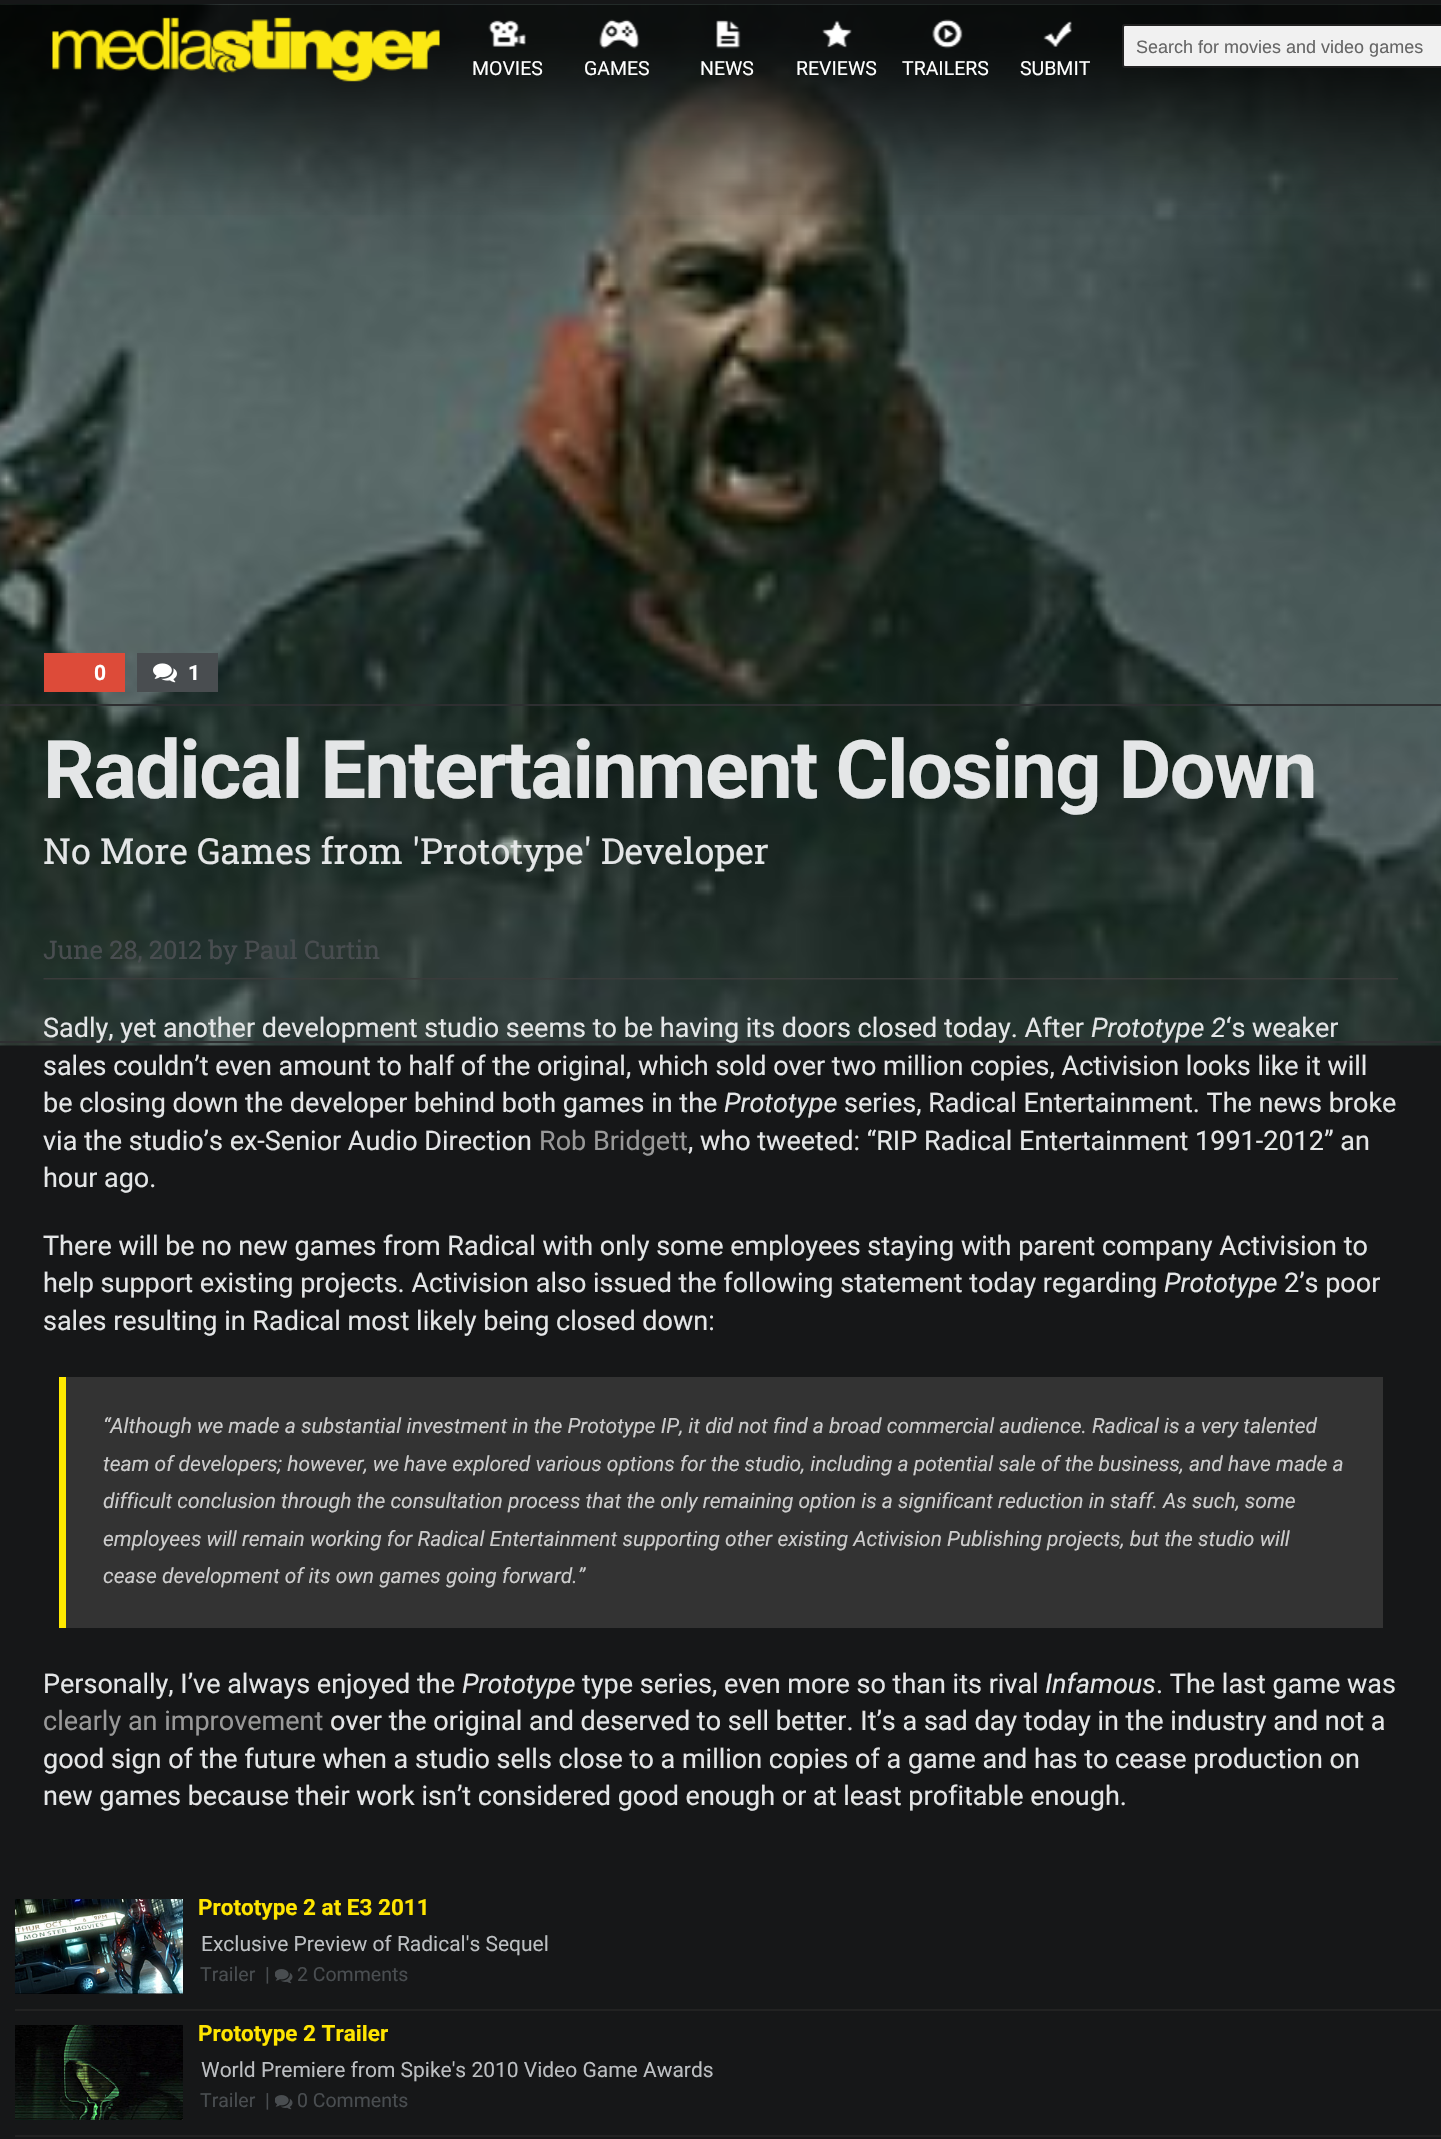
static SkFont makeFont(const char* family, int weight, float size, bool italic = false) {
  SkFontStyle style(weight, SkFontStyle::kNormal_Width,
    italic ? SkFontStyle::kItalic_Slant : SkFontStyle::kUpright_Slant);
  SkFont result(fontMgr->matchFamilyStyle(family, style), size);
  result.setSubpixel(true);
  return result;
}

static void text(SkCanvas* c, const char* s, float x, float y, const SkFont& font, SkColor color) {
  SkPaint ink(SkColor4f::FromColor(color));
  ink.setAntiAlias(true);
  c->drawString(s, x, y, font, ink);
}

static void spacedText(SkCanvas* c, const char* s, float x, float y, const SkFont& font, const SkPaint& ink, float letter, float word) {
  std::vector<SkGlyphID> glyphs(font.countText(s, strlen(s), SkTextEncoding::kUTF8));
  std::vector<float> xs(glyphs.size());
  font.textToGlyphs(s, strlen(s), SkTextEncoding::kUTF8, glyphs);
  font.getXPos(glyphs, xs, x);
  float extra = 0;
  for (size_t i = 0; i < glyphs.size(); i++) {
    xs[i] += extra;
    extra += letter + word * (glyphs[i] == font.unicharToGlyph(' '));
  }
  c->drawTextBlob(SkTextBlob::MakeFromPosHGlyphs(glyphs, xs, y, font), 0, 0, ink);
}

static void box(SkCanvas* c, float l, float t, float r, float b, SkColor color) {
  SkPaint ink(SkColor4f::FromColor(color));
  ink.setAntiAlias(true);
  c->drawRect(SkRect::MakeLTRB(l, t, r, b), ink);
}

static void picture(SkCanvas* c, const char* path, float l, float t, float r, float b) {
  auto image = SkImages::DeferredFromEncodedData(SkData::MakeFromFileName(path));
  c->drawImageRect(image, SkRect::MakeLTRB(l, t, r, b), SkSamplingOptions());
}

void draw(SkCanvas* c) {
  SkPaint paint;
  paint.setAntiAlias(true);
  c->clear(0xff161718);
  picture(c, "img_01.png", 0, 4, 1441, 1046);
  picture(c, "img_02.png", 0, 4, 1441, 215);
  picture(c, "img_03.png", 52, 17, 440, 82);
  paint.setColor(0xfff1f1f1);
  c->drawRoundRect(SkRect::MakeLTRB(1123, 25, 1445, 67), 2, 2, paint);
  paint.setStyle(SkPaint::kStroke_Style);
  paint.setStrokeWidth(2);
  paint.setColor(0xff222222);
  c->drawRoundRect(SkRect::MakeLTRB(1123, 25, 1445, 67), 2, 2, paint);
  SkFont face1 = makeFont("Liberation Sans", 400, 18);
  text(c, "Search for movies and video games", 1136, 53, face1, 0xff666666);
  picture(c, "img_04.png", 488, 20, 526, 47);
  SkFont face2 = makeFont("Roboto", 400, 19.5f);
  text(c, "MOVIES", 472, 75, face2, 0xffffffff);
  picture(c, "img_05.png", 599, 19, 640, 49);
  text(c, "GAMES", 584, 75, face2, 0xffffffff);
  picture(c, "img_06.png", 716, 20, 741, 49);
  text(c, "NEWS", 700, 75, face2, 0xffffffff);
  picture(c, "img_07.png", 822, 20, 852, 48);
  text(c, "REVIEWS", 796, 75, face2, 0xffffffff);
  picture(c, "img_08.png", 932, 19, 963, 49);
  text(c, "TRAILERS", 902, 75, face2, 0xffffffff);
  picture(c, "img_09.png", 1043, 21, 1072, 47);
  text(c, "SUBMIT", 1020, 75, face2, 0xffffffff);
  box(c, 0, 1041, 1441, 1043, 0xff2e2f31);
  box(c, 44, 653, 125, 692, 0xffdd4b39);
  SkFont face3 = makeFont("Roboto", 700, 21);
  text(c, "0", 94, 680, face3, 0xffffffff);
  box(c, 137, 653, 218, 692, 0xff494d50);
  picture(c, "img_10.png", 153, 663, 177, 683);
  text(c, "1", 188, 680, face3, 0xffffffff);
  SkFont face4 = makeFont("Roboto", 700, 81);
  paint.setStyle(SkPaint::kFill_Style);
  paint.setColor(0xffe4e6e7);
  spacedText(c, "Radical Entertainment Closing Down", 43, 798, face4, paint, -1.5f, 0);
  SkFont face5 = makeFont("Roboto Slab", 400, 36);
  text(c, "No More Games from 'Prototype' Developer", 43, 864, face5, 0xffe4e6e7);
  box(c, 0, 704, 1441, 706, 0xff2e2f31);
  picture(c, "img_11.png", 43, 978, 1398, 980);
  SkFont face6 = makeFont("Roboto Slab", 400, 25.5f);
  text(c, "June 28, 2012 by Paul Curtin", 43, 959, face6, 0xff494d50);
  SkFont face7 = makeFont("Roboto", 400, 27);
  text(c, "Sadly, yet another development studio seems to be having its doors closed today. After", 43, 1037, face7, 0xffe4e6e7);
  SkFont face8 = makeFont("Roboto", 400, 27, true);
  text(c, "Prototype 2", 1091, 1037, face8, 0xffe4e6e7);
  text(c, "‘s weaker", 1226, 1037, face7, 0xffe4e6e7);
  text(c, "sales couldn’t even amount to half of the original, which sold over two million copies, Activision looks like it will", 43, 1075, face7, 0xffe4e6e7);
  text(c, "be closing down the developer behind both games in the", 43, 1112, face7, 0xffe4e6e7);
  text(c, "Prototype", 724, 1112, face8, 0xffe4e6e7);
  text(c, "series, Radical Entertainment. The news broke", 844, 1112, face7, 0xffe4e6e7);
  text(c, "via the studio’s ex-Senior Audio Direction", 43, 1150, face7, 0xffe4e6e7);
  text(c, "Rob Bridgett", 539, 1150, face7, 0xff999999);
  text(c, ", who tweeted: “RIP Radical Entertainment 1991-2012” an", 688, 1150, face7, 0xffe4e6e7);
  text(c, "hour ago.", 43, 1187, face7, 0xffe4e6e7);
  text(c, "There will be no new games from Radical with only some employees staying with parent company Activision to", 43, 1255, face7, 0xffe4e6e7);
  text(c, "help support existing projects. Activision also issued the following statement today regarding", 43, 1292, face7, 0xffe4e6e7);
  text(c, "Prototype", 1164, 1292, face8, 0xffe4e6e7);
  text(c, "2’s poor", 1284, 1292, face7, 0xffe4e6e7);
  text(c, "sales resulting in Radical most likely being closed down:", 43, 1330, face7, 0xffe4e6e7);
  box(c, 66, 1377, 1383, 1628, 0xff333333);
  box(c, 59, 1377, 66, 1628, 0xffffe900);
  SkFont face9 = makeFont("Roboto", 400, 21, true);
  text(c, "“Although we made a substantial investment in the Prototype IP, it did not find a broad commercial audience. Radical is a very talented", 103, 1433, face9, 0xffcccccc);
  text(c, "team of developers; however, we have explored various options for the studio, including a potential sale of the business, and have made a", 103, 1471, face9, 0xffcccccc);
  text(c, "difficult conclusion through the consultation process that the only remaining option is a significant reduction in staff. As such, some", 103, 1508, face9, 0xffcccccc);
  text(c, "employees will remain working for Radical Entertainment supporting other existing Activision Publishing projects, but the studio will", 103, 1546, face9, 0xffcccccc);
  text(c, "cease development of its own games going forward.”", 103, 1583, face9, 0xffcccccc);
  text(c, "Personally, I’ve always enjoyed the", 43, 1693, face7, 0xffe4e6e7);
  text(c, "Prototype", 462, 1693, face8, 0xffe4e6e7);
  text(c, "type series, even more so than its rival", 582, 1693, face7, 0xffe4e6e7);
  text(c, "Infamous", 1045, 1693, face8, 0xffe4e6e7);
  text(c, ". The last game was", 1156, 1693, face7, 0xffe4e6e7);
  text(c, "clearly an improvement", 43, 1730, face7, 0xff999999);
  text(c, "over the original and deserved to sell better. It’s a sad day today in the industry and not a", 330, 1730, face7, 0xffe4e6e7);
  text(c, "good sign of the future when a studio sells close to a million copies of a game and has to cease production on", 43, 1768, face7, 0xffe4e6e7);
  text(c, "new games because their work isn’t considered good enough or at least profitable enough.", 43, 1805, face7, 0xffe4e6e7);
  box(c, 15, 2009, 1441, 2011, 0xff222222);
  box(c, 15, 1993, 183, 1994, 0xff000000);
  picture(c, "img_12.png", 15, 1899, 183, 1994);
  c->save();
  c->clipRect(SkRect::MakeLTRB(183, 1899, 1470, 1926));
  SkFont face10 = makeFont("Roboto", 700, 22.5f);
  text(c, "Prototype 2 at E3 2011", 198, 1915, face10, 0xffffe500);
  c->restore();
  SkFont face11 = makeFont("Roboto", 400, 21);
  text(c, "Exclusive Preview of Radical's Sequel", 201, 1951, face11, 0xffbcbfc2);
  text(c, "Trailer  |", 200, 1981, face2, 0xff494d50);
  picture(c, "img_13.png", 275, 1969, 293, 1984);
  text(c, "2 Comments", 297, 1981, face2, 0xff494d50);
  box(c, 15, 2135, 1441, 2137, 0xff222222);
  box(c, 15, 2119, 183, 2120, 0xff000000);
  picture(c, "img_14.png", 15, 2025, 183, 2120);
  c->save();
  c->clipRect(SkRect::MakeLTRB(183, 2025, 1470, 2052));
  text(c, "Prototype 2 Trailer", 198, 2041, face10, 0xffffe500);
  c->restore();
  text(c, "World Premiere from Spike's 2010 Video Game Awards", 201, 2077, face11, 0xffbcbfc2);
  text(c, "Trailer  |", 200, 2107, face2, 0xff494d50);
  picture(c, "img_13.png", 275, 2095, 293, 2110);
  text(c, "0 Comments", 297, 2107, face2, 0xff494d50);
}
